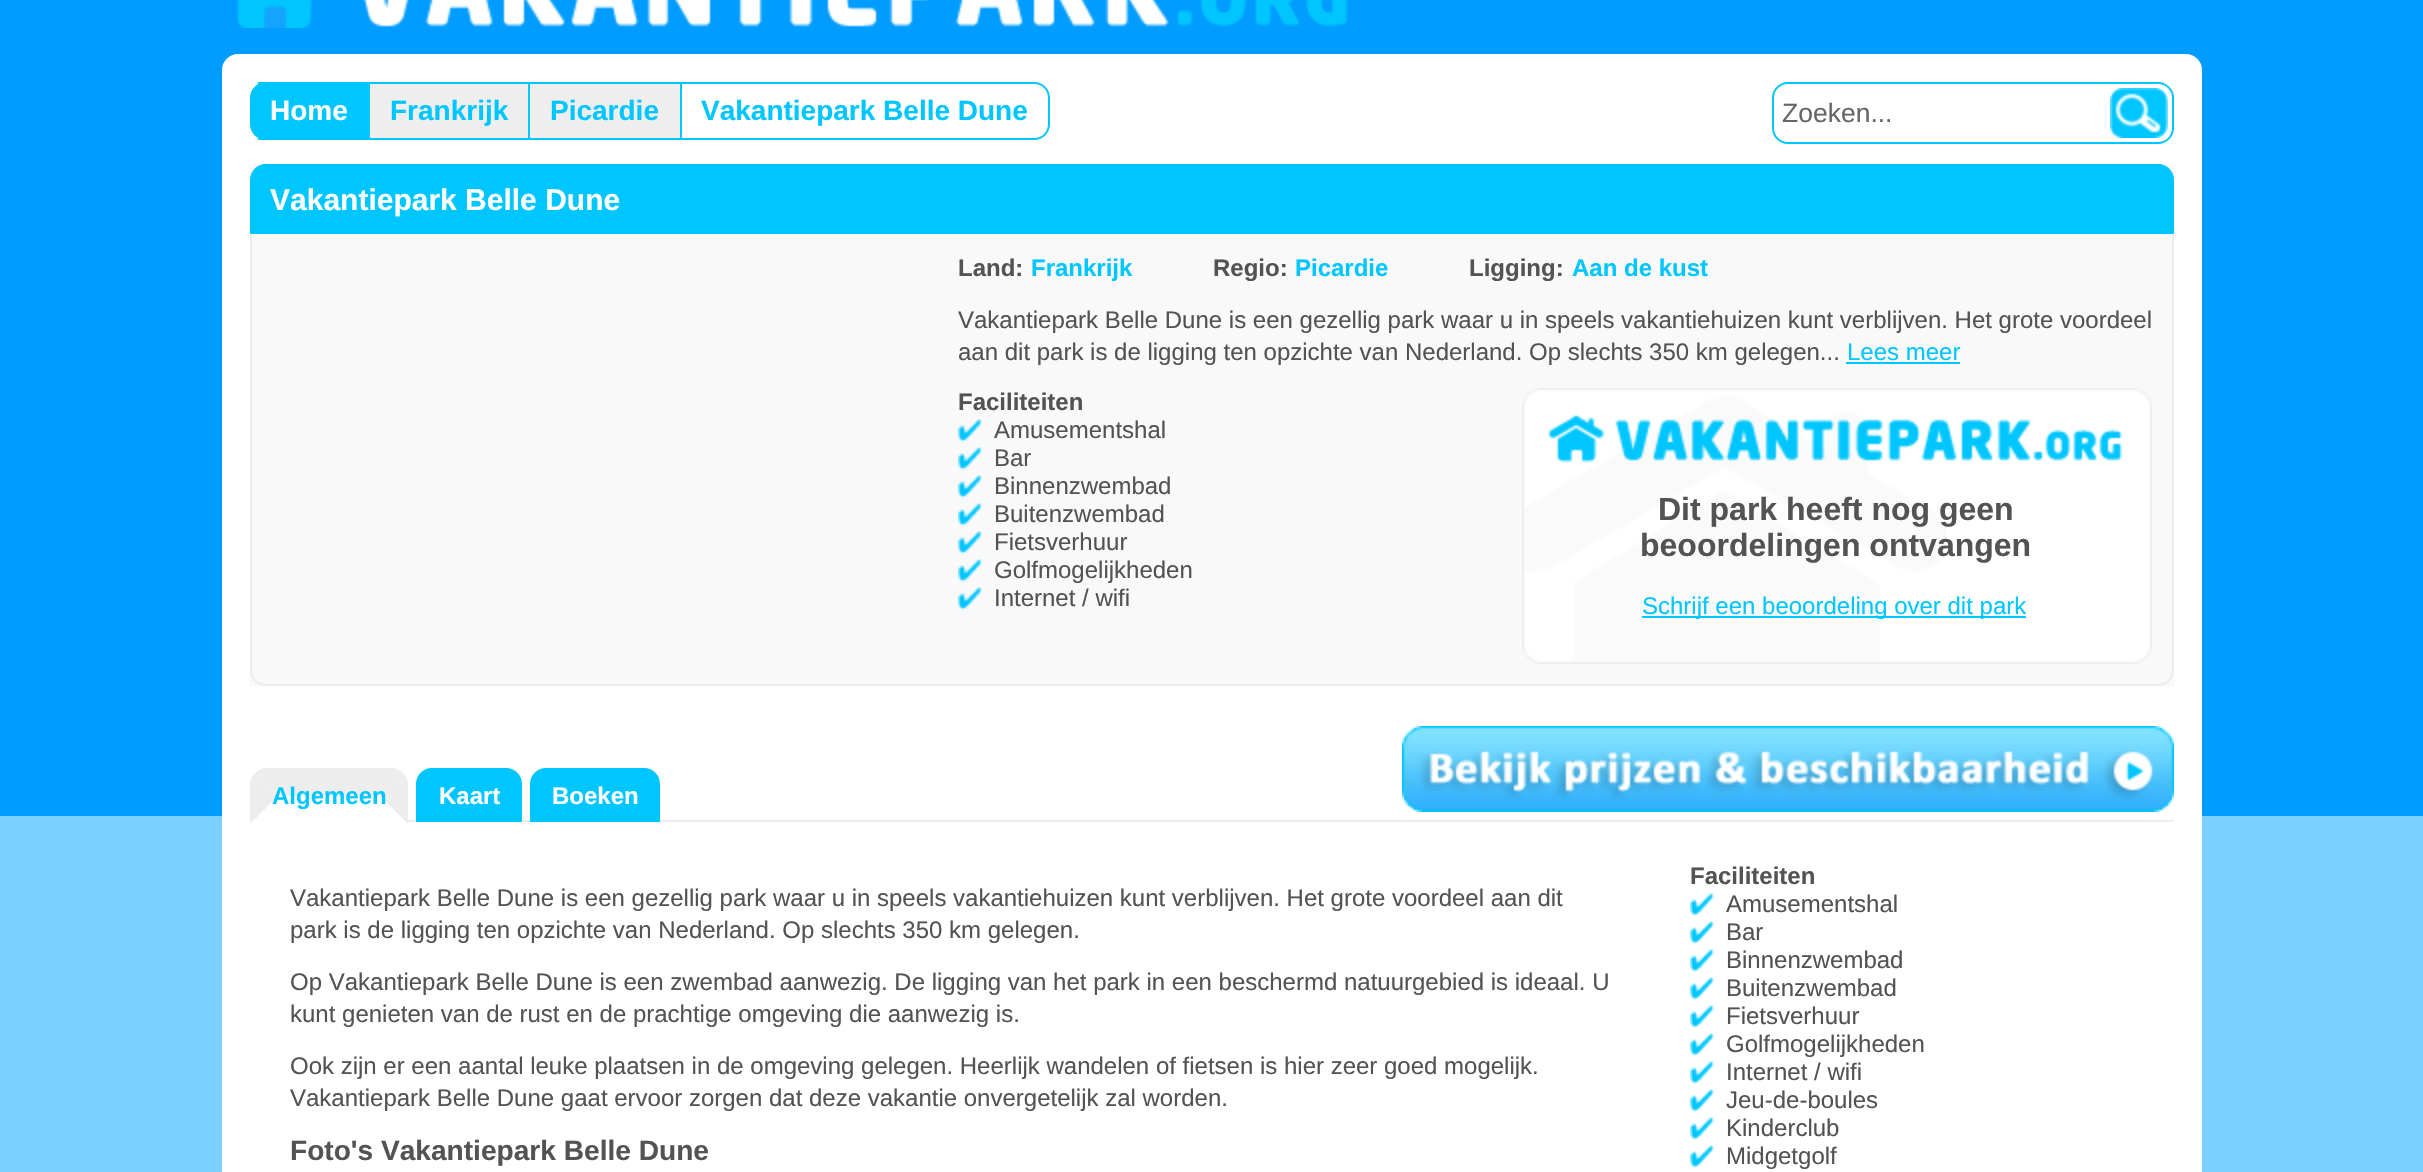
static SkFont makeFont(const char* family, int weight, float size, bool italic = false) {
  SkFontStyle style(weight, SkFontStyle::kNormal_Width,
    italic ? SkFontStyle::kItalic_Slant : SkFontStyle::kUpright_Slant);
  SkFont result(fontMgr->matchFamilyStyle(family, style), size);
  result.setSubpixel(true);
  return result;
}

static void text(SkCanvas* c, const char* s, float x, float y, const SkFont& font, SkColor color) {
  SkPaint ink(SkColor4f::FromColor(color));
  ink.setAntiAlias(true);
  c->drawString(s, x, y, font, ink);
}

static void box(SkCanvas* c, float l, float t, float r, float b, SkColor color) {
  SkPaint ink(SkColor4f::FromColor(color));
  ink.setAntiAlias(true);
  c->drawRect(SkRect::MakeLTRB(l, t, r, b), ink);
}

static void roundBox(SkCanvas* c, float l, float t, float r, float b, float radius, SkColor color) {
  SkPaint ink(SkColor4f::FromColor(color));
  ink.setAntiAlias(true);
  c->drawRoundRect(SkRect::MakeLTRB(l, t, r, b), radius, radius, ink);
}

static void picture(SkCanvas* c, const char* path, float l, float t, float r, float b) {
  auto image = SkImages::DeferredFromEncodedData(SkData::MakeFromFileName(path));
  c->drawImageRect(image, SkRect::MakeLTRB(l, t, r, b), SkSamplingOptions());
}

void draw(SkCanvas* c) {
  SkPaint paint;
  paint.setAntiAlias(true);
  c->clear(0xff7cd0ff);
  box(c, 0, 0, 2423, 816, 0xff009cff);
  picture(c, "img_01.png", 237, 0, 1348, 28);
  roundBox(c, 222, 54, 2202, 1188, 16, 0xffffffff);
  paint.setColor(0xff00c6ff);
  c->drawPath(SkPathBuilder().moveTo(266, 82).lineTo(370, 82).lineTo(370, 140).lineTo(266, 140).cubicTo(257, 140, 250, 133, 250, 124).lineTo(250, 98).cubicTo(250, 89, 257, 82, 266, 82).close().detach(), paint);
  box(c, 258, 82, 266, 84, 0xff00c6ff);
  box(c, 258, 138, 266, 140, 0xff00c6ff);
  SkFont face1 = makeFont("Liberation Sans", 700, 28);
  text(c, "Home", 270, 120, face1, 0xffffffff);
  box(c, 370, 84, 528, 138, 0xffeeeeee);
  box(c, 370, 82, 682, 84, 0xff00c6ff);
  box(c, 528, 82, 530, 140, 0xff00c6ff);
  box(c, 370, 138, 530, 140, 0xff00c6ff);
  text(c, "Frankrijk", 390, 120, face1, 0xff00c6ff);
  box(c, 530, 84, 680, 138, 0xffeeeeee);
  box(c, 680, 82, 682, 140, 0xff00c6ff);
  box(c, 530, 138, 682, 140, 0xff00c6ff);
  text(c, "Picardie", 550, 120, face1, 0xff00c6ff);
  c->drawPath(SkPathBuilder(SkPathFillType::kEvenOdd).moveTo(682, 82).lineTo(1034, 82).cubicTo(1043, 82, 1050, 89, 1050, 98).lineTo(1050, 124).cubicTo(1050, 133, 1043, 140, 1034, 140).lineTo(682, 140).close().moveTo(682, 84).lineTo(1034, 84).cubicTo(1042, 84, 1048, 90, 1048, 98).lineTo(1048, 124).cubicTo(1048, 132, 1042, 138, 1034, 138).lineTo(682, 138).close().detach(), paint);
  text(c, "Vakantiepark Belle Dune", 701, 120, face1, 0xff00c6ff);
  paint.setStyle(SkPaint::kStroke_Style);
  paint.setStrokeWidth(2);
  c->drawRoundRect(SkRect::MakeLTRB(1773, 83, 2173, 143), 15, 15, paint);
  box(c, 1778, 88, 1779, 138, 0xffffffff);
  SkFont face2 = makeFont("Liberation Sans", 400, 26.5f);
  text(c, "Zoeken...", 1782, 122, face2, 0xff666666);
  picture(c, "img_02.png", 2110, 88, 2168, 138);
  box(c, 250, 164, 2174, 686, 0xfff9f9f9);
  paint.setStyle(SkPaint::kFill_Style);
  c->drawPath(SkPathBuilder().moveTo(266, 164).lineTo(2158, 164).cubicTo(2167, 164, 2174, 171, 2174, 180).lineTo(2174, 234).lineTo(250, 234).lineTo(250, 180).cubicTo(250, 171, 257, 164, 266, 164).close().detach(), paint);
  SkFont face3 = makeFont("Liberation Sans", 700, 30);
  text(c, "Vakantiepark Belle Dune", 270, 210, face3, 0xffffffff);
  paint.setColor(0xffededed);
  c->drawPath(SkPathBuilder(SkPathFillType::kEvenOdd).moveTo(250, 234).lineTo(2174, 234).lineTo(2174, 670).cubicTo(2174, 679, 2167, 686, 2158, 686).lineTo(266, 686).cubicTo(257, 686, 250, 679, 250, 670).close().moveTo(252, 234).lineTo(2172, 234).lineTo(2172, 670).cubicTo(2172, 678, 2166, 684, 2158, 684).lineTo(266, 684).cubicTo(258, 684, 252, 678, 252, 670).close().detach(), paint);
  SkFont face4 = makeFont("Liberation Sans", 700, 24);
  text(c, "Land:", 958, 276, face4, 0xff535353);
  text(c, "Frankrijk", 1031, 276, face4, 0xff00c6ff);
  text(c, "Regio:", 1213, 276, face4, 0xff535353);
  text(c, "Picardie", 1295, 276, face4, 0xff00c6ff);
  text(c, "Ligging:", 1469, 276, face4, 0xff535353);
  text(c, "Aan de kust", 1572, 276, face4, 0xff00c6ff);
  SkFont face5 = makeFont("Liberation Sans", 400, 24);
  text(c, "Vakantiepark Belle Dune is een gezellig park waar u in speels vakantiehuizen kunt verblijven. Het grote voordeel", 958, 328, face5, 0xff535353);
  text(c, "aan dit park is de ligging ten opzichte van Nederland. Op slechts 350 km gelegen...", 958, 360, face5, 0xff535353);
  text(c, "Lees meer", 1847, 360, face5, 0xff00c6ff);
  box(c, 1846, 362, 1960, 364, 0xff00c6ff);
  text(c, "Faciliteiten", 958, 410, face4, 0xff535353);
  picture(c, "img_03.png", 958, 419, 982, 443);
  text(c, "Amusementshal", 994, 438, face5, 0xff535353);
  picture(c, "img_03.png", 958, 447, 982, 471);
  text(c, "Bar", 994, 466, face5, 0xff535353);
  picture(c, "img_03.png", 958, 475, 982, 499);
  text(c, "Binnenzwembad", 994, 494, face5, 0xff535353);
  picture(c, "img_03.png", 958, 503, 982, 527);
  text(c, "Buitenzwembad", 994, 522, face5, 0xff535353);
  picture(c, "img_03.png", 958, 531, 982, 555);
  text(c, "Fietsverhuur", 994, 550, face5, 0xff535353);
  picture(c, "img_03.png", 958, 559, 982, 583);
  text(c, "Golfmogelijkheden", 994, 578, face5, 0xff535353);
  picture(c, "img_03.png", 958, 587, 982, 611);
  text(c, "Internet / wifi", 994, 606, face5, 0xff535353);
  picture(c, "img_04.png", 1522, 388, 2152, 664);
  SkFont face6 = makeFont("Liberation Sans", 700, 32);
  text(c, "Dit park heeft nog geen", 1658, 520, face6, 0xff535353);
  text(c, "beoordelingen ontvangen", 1640, 556, face6, 0xff535353);
  box(c, 1642, 616, 2026, 618, 0xff00c6ff);
  text(c, "Schrijf een beoordeling over dit park", 1642, 614, face5, 0xff00c6ff);
  box(c, 408, 820, 2174, 822, 0xffededed);
  c->drawPath(SkPathBuilder().moveTo(266, 768).lineTo(392, 768).cubicTo(396, 768, 400, 770, 403, 773).lineTo(380, 796).lineTo(278, 796).lineTo(255, 773).cubicTo(258, 770, 262, 768, 266, 768).close().detach(), paint);
  c->drawPath(SkPathBuilder().moveTo(403, 773).lineTo(380, 796).lineTo(408, 824).lineTo(408, 784).cubicTo(408, 780, 406, 776, 403, 773).close().detach(), paint);
  paint.setColor(0xffffffff);
  c->drawPath(SkPathBuilder().moveTo(408, 824).lineTo(380, 796).lineTo(278, 796).lineTo(250, 824).close().detach(), paint);
  paint.setColor(0xffededed);
  c->drawPath(SkPathBuilder().moveTo(250, 824).lineTo(250, 784).cubicTo(250, 780, 252, 776, 255, 773).lineTo(278, 796).close().detach(), paint);
  text(c, "Algemeen", 272, 804, face4, 0xff00c6ff);
  paint.setColor(0xff00c6ff);
  c->drawPath(SkPathBuilder().moveTo(432, 768).lineTo(506, 768).cubicTo(515, 768, 522, 775, 522, 784).lineTo(522, 822).lineTo(416, 822).lineTo(416, 784).cubicTo(416, 775, 423, 768, 432, 768).close().detach(), paint);
  text(c, "Kaart", 439, 804, face4, 0xffffffff);
  c->drawPath(SkPathBuilder().moveTo(546, 768).lineTo(644, 768).cubicTo(653, 768, 660, 775, 660, 784).lineTo(660, 822).lineTo(530, 822).lineTo(530, 784).cubicTo(530, 775, 537, 768, 546, 768).close().detach(), paint);
  text(c, "Boeken", 552, 804, face4, 0xffffffff);
  picture(c, "img_05.png", 1402, 726, 2174, 812);
  text(c, "Vakantiepark Belle Dune is een gezellig park waar u in speels vakantiehuizen kunt verblijven. Het grote voordeel aan dit", 290, 906, face5, 0xff535353);
  text(c, "park is de ligging ten opzichte van Nederland. Op slechts 350 km gelegen.", 290, 938, face5, 0xff535353);
  text(c, "Op Vakantiepark Belle Dune is een zwembad aanwezig. De ligging van het park in een beschermd natuurgebied is ideaal. U", 290, 990, face5, 0xff535353);
  text(c, "kunt genieten van de rust en de prachtige omgeving die aanwezig is.", 290, 1022, face5, 0xff535353);
  text(c, "Ook zijn er een aantal leuke plaatsen in de omgeving gelegen. Heerlijk wandelen of fietsen is hier zeer goed mogelijk.", 290, 1074, face5, 0xff535353);
  text(c, "Vakantiepark Belle Dune gaat ervoor zorgen dat deze vakantie onvergetelijk zal worden.", 290, 1106, face5, 0xff535353);
  SkFont face7 = makeFont("Liberation Sans", 700, 28.1f);
  text(c, "Foto's Vakantiepark Belle Dune", 290, 1160, face7, 0xff535353);
  text(c, "Faciliteiten", 1690, 884, face4, 0xff535353);
  picture(c, "img_06.png", 1690, 893, 1714, 917);
  text(c, "Amusementshal", 1726, 912, face5, 0xff535353);
  picture(c, "img_06.png", 1690, 921, 1714, 945);
  text(c, "Bar", 1726, 940, face5, 0xff535353);
  picture(c, "img_06.png", 1690, 949, 1714, 973);
  text(c, "Binnenzwembad", 1726, 968, face5, 0xff535353);
  picture(c, "img_06.png", 1690, 977, 1714, 1001);
  text(c, "Buitenzwembad", 1726, 996, face5, 0xff535353);
  picture(c, "img_06.png", 1690, 1005, 1714, 1029);
  text(c, "Fietsverhuur", 1726, 1024, face5, 0xff535353);
  picture(c, "img_06.png", 1690, 1033, 1714, 1057);
  text(c, "Golfmogelijkheden", 1726, 1052, face5, 0xff535353);
  picture(c, "img_06.png", 1690, 1061, 1714, 1085);
  text(c, "Internet / wifi", 1726, 1080, face5, 0xff535353);
  picture(c, "img_06.png", 1690, 1089, 1714, 1113);
  text(c, "Jeu-de-boules", 1726, 1108, face5, 0xff535353);
  picture(c, "img_06.png", 1690, 1117, 1714, 1141);
  text(c, "Kinderclub", 1726, 1136, face5, 0xff535353);
  picture(c, "img_06.png", 1690, 1145, 1714, 1169);
  text(c, "Midgetgolf", 1726, 1164, face5, 0xff535353);
}
